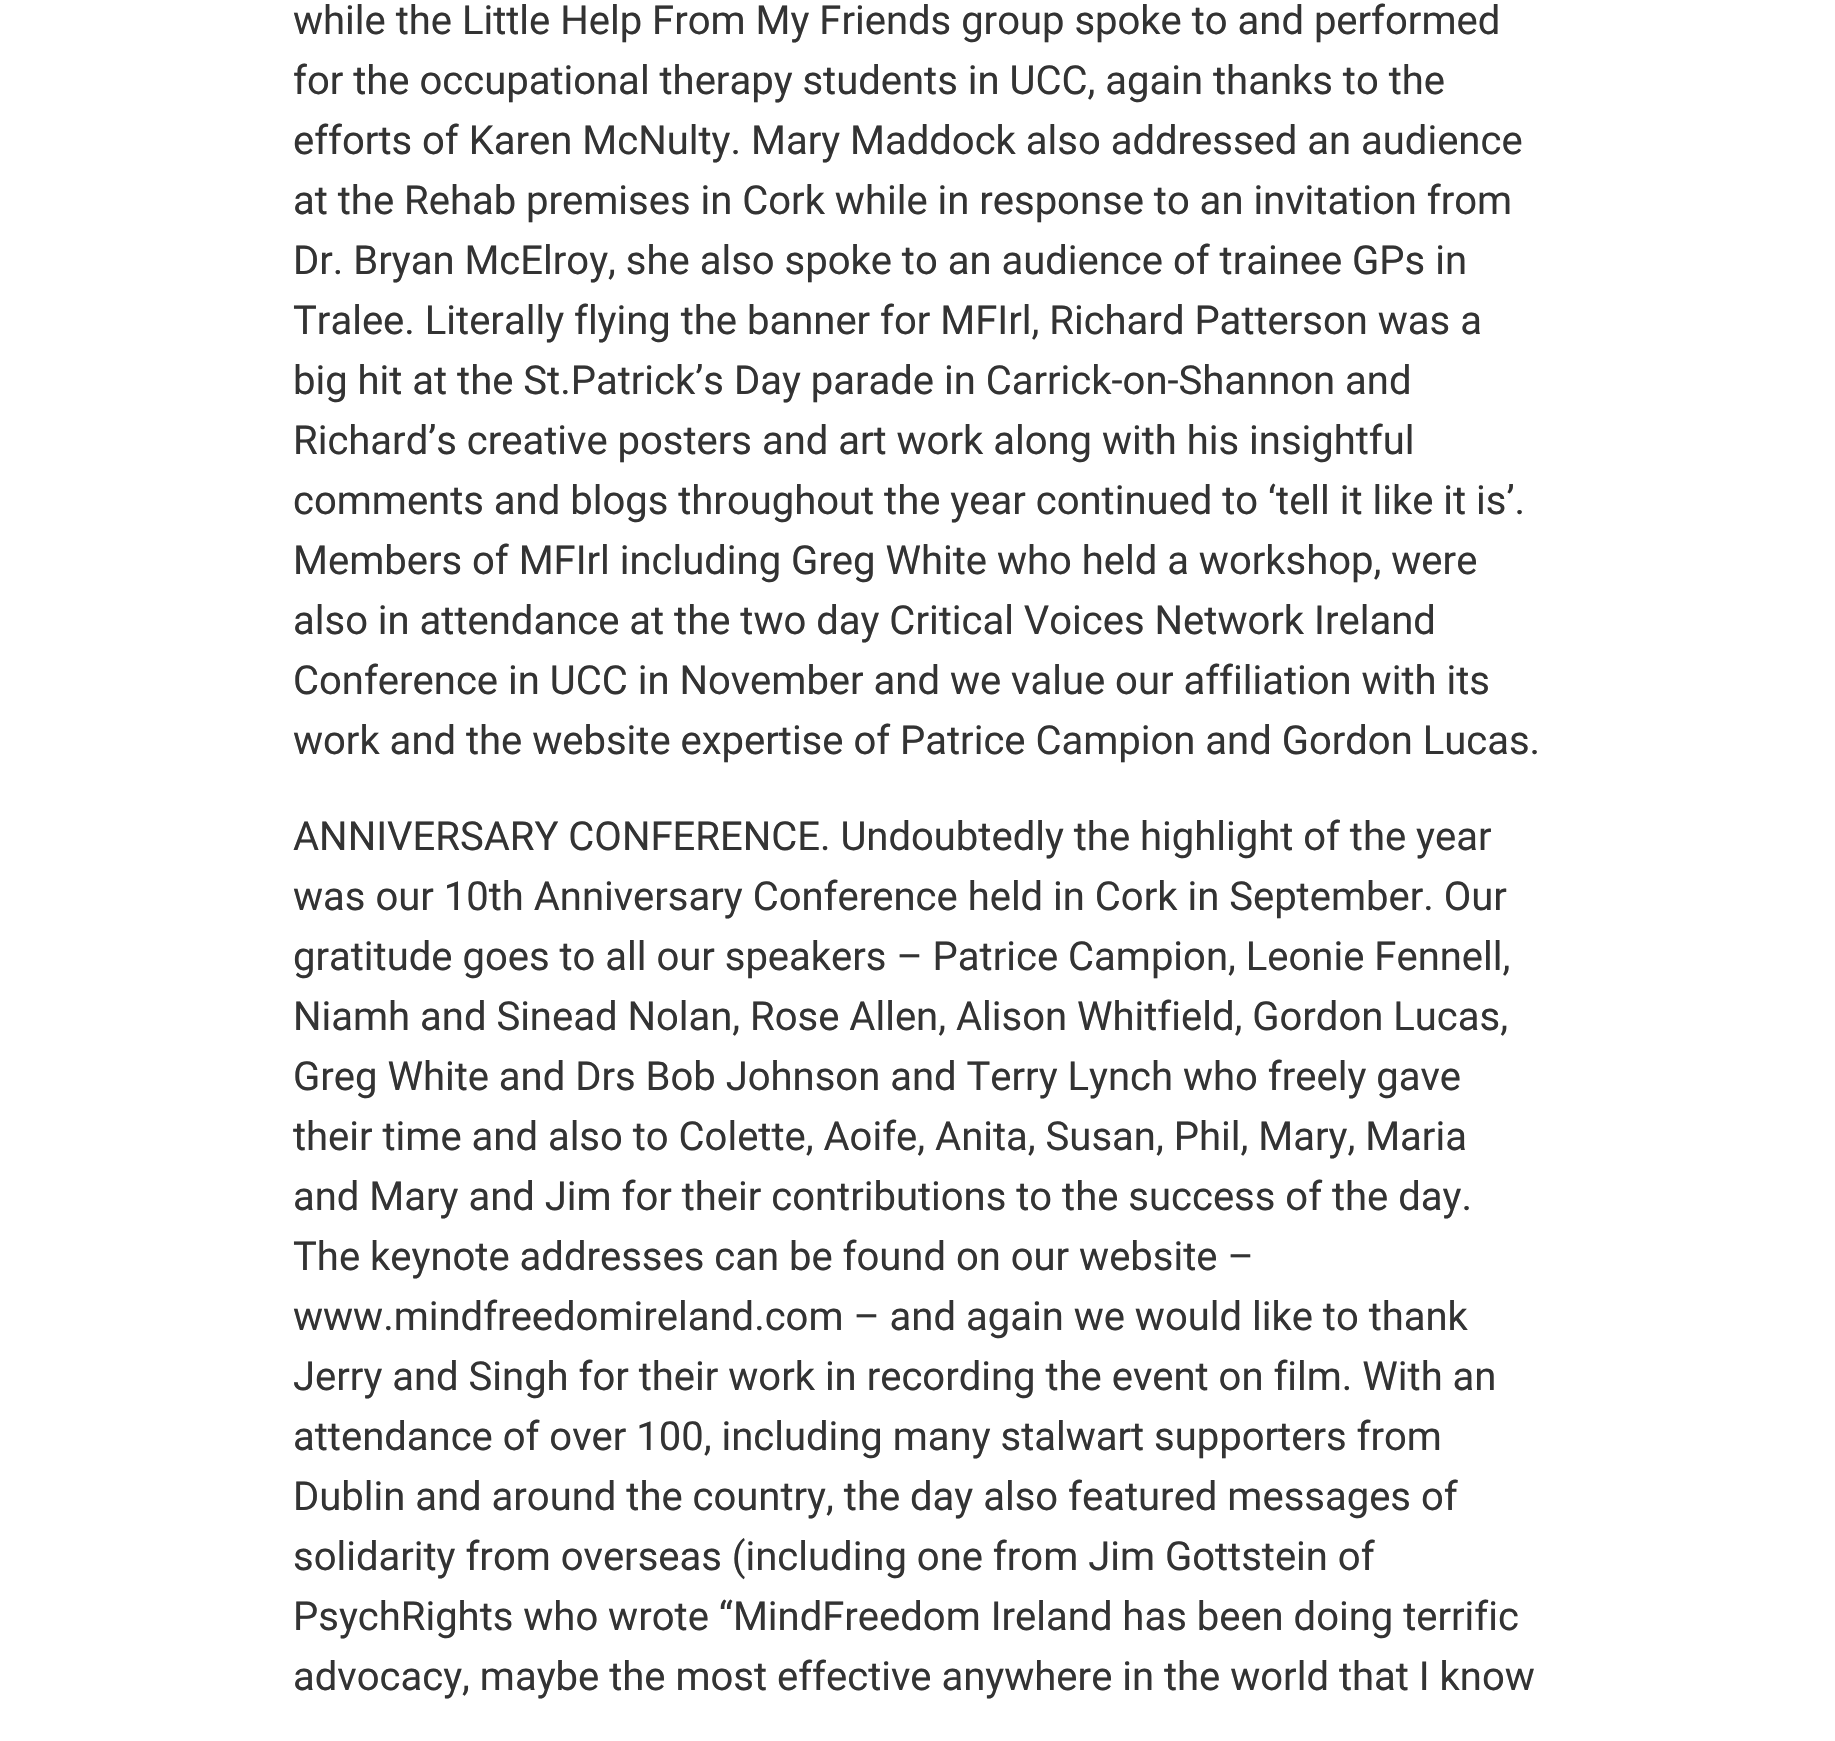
static SkFont makeFont(const char* family, int weight, float size, bool italic = false) {
  SkFontStyle style(weight, SkFontStyle::kNormal_Width,
    italic ? SkFontStyle::kItalic_Slant : SkFontStyle::kUpright_Slant);
  SkFont result(fontMgr->matchFamilyStyle(family, style), size);
  result.setSubpixel(true);
  return result;
}

static void text(SkCanvas* c, const char* s, float x, float y, const SkFont& font, SkColor color) {
  SkPaint ink(SkColor4f::FromColor(color));
  ink.setAntiAlias(true);
  c->drawString(s, x, y, font, ink);
}

void draw(SkCanvas* c) {
  SkPaint paint;
  paint.setAntiAlias(true);
  c->clear(0xffffffff);
  SkFont face1 = makeFont("Roboto", 400, 40);
  text(c, "while the Little Help From My Friends group spoke to and performed", 293, 34, face1, 0xff333333);
  text(c, "for the occupational therapy students in UCC, again thanks to the", 293, 94, face1, 0xff333333);
  text(c, "efforts of Karen McNulty. Mary Maddock also addressed an audience", 293, 154, face1, 0xff333333);
  text(c, "at the Rehab premises in Cork while in response to an invitation from", 293, 214, face1, 0xff333333);
  text(c, "Dr. Bryan McElroy, she also spoke to an audience of trainee GPs in", 293, 274, face1, 0xff333333);
  text(c, "Tralee. Literally flying the banner for MFIrl, Richard Patterson was a", 293, 334, face1, 0xff333333);
  text(c, "big hit at the St.Patrick’s Day parade in Carrick-on-Shannon and", 293, 394, face1, 0xff333333);
  text(c, "Richard’s creative posters and art work along with his insightful", 293, 454, face1, 0xff333333);
  text(c, "comments and blogs throughout the year continued to ‘tell it like it is’.", 293, 514, face1, 0xff333333);
  text(c, "Members of MFIrl including Greg White who held a workshop, were", 293, 574, face1, 0xff333333);
  text(c, "also in attendance at the two day Critical Voices Network Ireland", 293, 634, face1, 0xff333333);
  text(c, "Conference in UCC in November and we value our affiliation with its", 293, 694, face1, 0xff333333);
  text(c, "work and the website expertise of Patrice Campion and Gordon Lucas.", 293, 754, face1, 0xff333333);
  text(c, "ANNIVERSARY CONFERENCE. Undoubtedly the highlight of the year", 293, 850, face1, 0xff333333);
  text(c, "was our 10th Anniversary Conference held in Cork in September. Our", 293, 910, face1, 0xff333333);
  text(c, "gratitude goes to all our speakers – Patrice Campion, Leonie Fennell,", 293, 970, face1, 0xff333333);
  text(c, "Niamh and Sinead Nolan, Rose Allen, Alison Whitfield, Gordon Lucas,", 293, 1030, face1, 0xff333333);
  text(c, "Greg White and Drs Bob Johnson and Terry Lynch who freely gave", 293, 1090, face1, 0xff333333);
  text(c, "their time and also to Colette, Aoife, Anita, Susan, Phil, Mary, Maria", 293, 1150, face1, 0xff333333);
  text(c, "and Mary and Jim for their contributions to the success of the day.", 293, 1210, face1, 0xff333333);
  text(c, "The keynote addresses can be found on our website –", 293, 1270, face1, 0xff333333);
  text(c, "www.mindfreedomireland.com – and again we would like to thank", 293, 1330, face1, 0xff333333);
  text(c, "Jerry and Singh for their work in recording the event on film. With an", 293, 1390, face1, 0xff333333);
  text(c, "attendance of over 100, including many stalwart supporters from", 293, 1450, face1, 0xff333333);
  text(c, "Dublin and around the country, the day also featured messages of", 293, 1510, face1, 0xff333333);
  text(c, "solidarity from overseas (including one from Jim Gottstein of", 293, 1570, face1, 0xff333333);
  text(c, "PsychRights who wrote “MindFreedom Ireland has been doing terrific", 293, 1630, face1, 0xff333333);
  text(c, "advocacy, maybe the most effective anywhere in the world that I know", 293, 1690, face1, 0xff333333);
}
